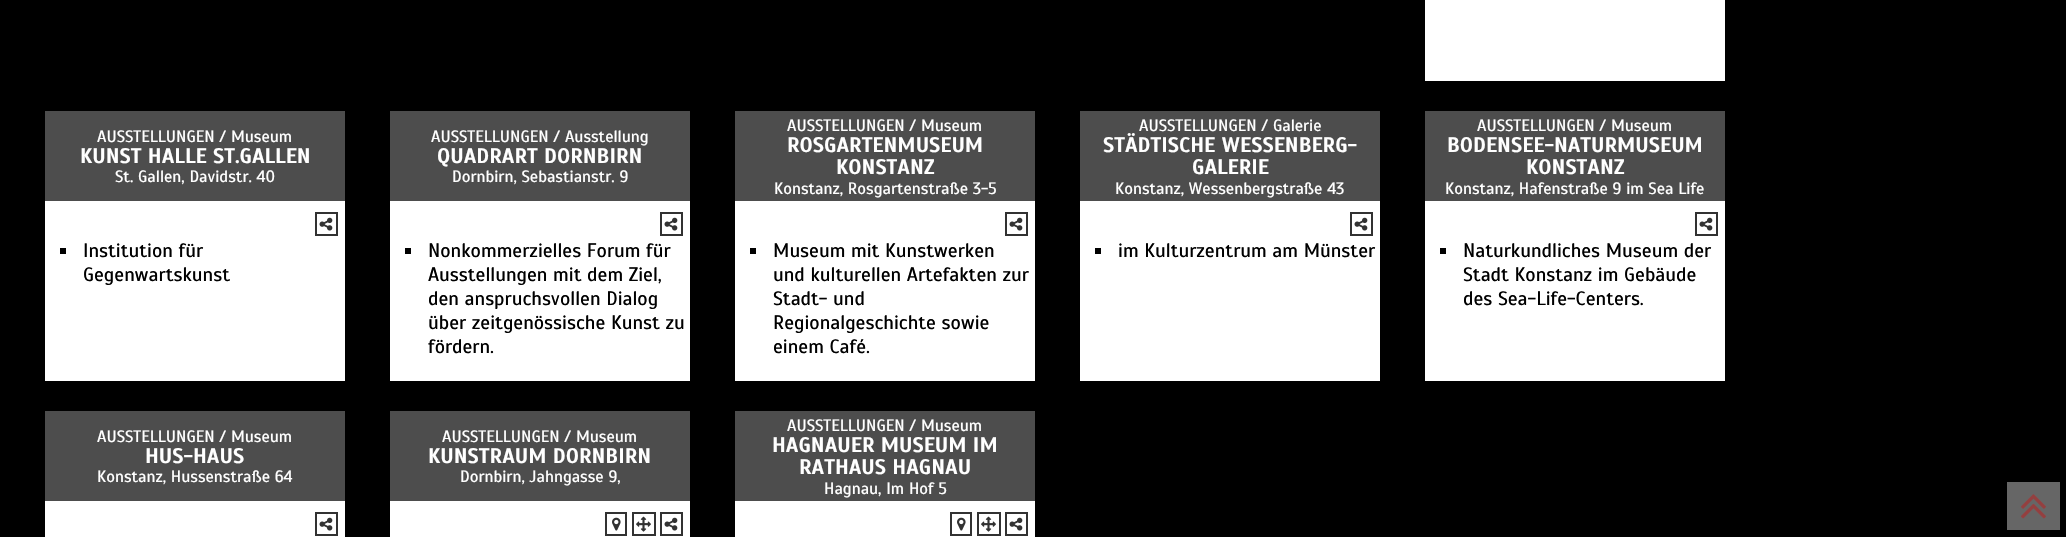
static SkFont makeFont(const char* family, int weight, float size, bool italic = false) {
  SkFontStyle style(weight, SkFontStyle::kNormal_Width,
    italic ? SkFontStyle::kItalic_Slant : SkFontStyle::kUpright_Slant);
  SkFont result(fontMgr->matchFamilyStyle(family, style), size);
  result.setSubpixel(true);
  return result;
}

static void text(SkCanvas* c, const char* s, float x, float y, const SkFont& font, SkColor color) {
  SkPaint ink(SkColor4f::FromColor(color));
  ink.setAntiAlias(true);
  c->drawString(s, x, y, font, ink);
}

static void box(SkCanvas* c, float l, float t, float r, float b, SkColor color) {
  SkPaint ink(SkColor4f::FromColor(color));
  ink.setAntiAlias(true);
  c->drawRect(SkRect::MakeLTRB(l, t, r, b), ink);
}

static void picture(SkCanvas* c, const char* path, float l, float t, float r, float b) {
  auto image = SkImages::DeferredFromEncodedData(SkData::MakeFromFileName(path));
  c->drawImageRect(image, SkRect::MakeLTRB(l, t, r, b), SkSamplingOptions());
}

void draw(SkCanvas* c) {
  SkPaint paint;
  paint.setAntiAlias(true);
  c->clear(0xff000000);
  box(c, 1425, 0, 1725, 81, 0xffffffff);
  box(c, 45, 201, 345, 381, 0xffffffff);
  box(c, 45, 111, 345, 201, 0xff4d4d4d);
  SkFont face1 = makeFont("Scada", 400, 16.5f);
  text(c, "AUSSTELLUNGEN / Museum", 97, 142, face1, 0xffffffff);
  SkFont face2 = makeFont("Scada", 700, 21);
  text(c, "KUNST HALLE ST.GALLEN", 80, 163, face2, 0xffffffff);
  text(c, "St. Gallen, Davidstr. 40", 115, 182, face1, 0xffffffff);
  paint.setStyle(SkPaint::kStroke_Style);
  paint.setStrokeWidth(2);
  paint.setColor(0xff323232);
  c->drawRect(SkRect::MakeLTRB(316, 213, 337, 235), paint);
  picture(c, "img_01.png", 319, 217, 333, 231);
  box(c, 60, 248, 66, 254, 0xff000000);
  SkFont face3 = makeFont("Scada", 400, 19.5f);
  text(c, "Institution für", 83, 257, face3, 0xff000000);
  text(c, "Gegenwartskunst", 83, 281, face3, 0xff000000);
  box(c, 390, 201, 690, 381, 0xffffffff);
  box(c, 390, 111, 690, 201, 0xff4d4d4d);
  text(c, "AUSSTELLUNGEN / Ausstellung", 431, 142, face1, 0xffffffff);
  text(c, "QUADRART DORNBIRN", 437, 163, face2, 0xffffffff);
  text(c, "Dornbirn, Sebastianstr. 9", 452, 182, face1, 0xffffffff);
  c->drawRect(SkRect::MakeLTRB(661, 213, 682, 235), paint);
  picture(c, "img_01.png", 664, 217, 678, 231);
  box(c, 405, 248, 411, 254, 0xff000000);
  text(c, "Nonkommerzielles Forum für", 428, 257, face3, 0xff000000);
  text(c, "Ausstellungen mit dem Ziel,", 428, 281, face3, 0xff000000);
  text(c, "den anspruchsvollen Dialog", 428, 305, face3, 0xff000000);
  text(c, "über zeitgenössische Kunst zu", 428, 329, face3, 0xff000000);
  text(c, "fördern.", 428, 353, face3, 0xff000000);
  box(c, 735, 201, 1035, 381, 0xffffffff);
  box(c, 735, 111, 1035, 201, 0xff4d4d4d);
  text(c, "AUSSTELLUNGEN / Museum", 787, 131, face1, 0xffffffff);
  text(c, "ROSGARTENMUSEUM", 787, 152, face2, 0xffffffff);
  text(c, "KONSTANZ", 836, 174, face2, 0xffffffff);
  text(c, "Konstanz, Rosgartenstraße 3-5", 774, 194, face1, 0xffffffff);
  c->drawRect(SkRect::MakeLTRB(1006, 213, 1027, 235), paint);
  picture(c, "img_01.png", 1009, 217, 1023, 231);
  box(c, 750, 248, 756, 254, 0xff000000);
  text(c, "Museum mit Kunstwerken", 773, 257, face3, 0xff000000);
  text(c, "und kulturellen Artefakten zur", 773, 281, face3, 0xff000000);
  text(c, "Stadt- und", 773, 305, face3, 0xff000000);
  text(c, "Regionalgeschichte sowie", 773, 329, face3, 0xff000000);
  text(c, "einem Café.", 773, 353, face3, 0xff000000);
  box(c, 1080, 201, 1380, 381, 0xffffffff);
  box(c, 1080, 111, 1380, 201, 0xff4d4d4d);
  text(c, "AUSSTELLUNGEN / Galerie", 1139, 131, face1, 0xffffffff);
  text(c, "STÄDTISCHE WESSENBERG-", 1103, 152, face2, 0xffffffff);
  text(c, "GALERIE", 1192, 174, face2, 0xffffffff);
  text(c, "Konstanz, Wessenbergstraße 43", 1115, 194, face1, 0xffffffff);
  c->drawRect(SkRect::MakeLTRB(1351, 213, 1372, 235), paint);
  picture(c, "img_01.png", 1354, 217, 1368, 231);
  box(c, 1095, 248, 1101, 254, 0xff000000);
  text(c, "im Kulturzentrum am Münster", 1118, 257, face3, 0xff000000);
  box(c, 1425, 201, 1725, 381, 0xffffffff);
  box(c, 1425, 111, 1725, 201, 0xff4d4d4d);
  text(c, "AUSSTELLUNGEN / Museum", 1477, 131, face1, 0xffffffff);
  text(c, "BODENSEE-NATURMUSEUM", 1447, 152, face2, 0xffffffff);
  text(c, "KONSTANZ", 1526, 174, face2, 0xffffffff);
  text(c, "Konstanz, Hafenstraße 9 im Sea Life", 1445, 194, face1, 0xffffffff);
  c->drawRect(SkRect::MakeLTRB(1696, 213, 1717, 235), paint);
  picture(c, "img_01.png", 1699, 217, 1713, 231);
  box(c, 1440, 248, 1446, 254, 0xff000000);
  text(c, "Naturkundliches Museum der", 1463, 257, face3, 0xff000000);
  text(c, "Stadt Konstanz im Gebäude", 1463, 281, face3, 0xff000000);
  text(c, "des Sea-Life-Centers.", 1463, 305, face3, 0xff000000);
  box(c, 45, 501, 345, 537, 0xffffffff);
  box(c, 45, 411, 345, 501, 0xff4d4d4d);
  text(c, "AUSSTELLUNGEN / Museum", 97, 442, face1, 0xffffffff);
  text(c, "HUS-HAUS", 145, 463, face2, 0xffffffff);
  text(c, "Konstanz, Hussenstraße 64", 97, 482, face1, 0xffffffff);
  c->drawRect(SkRect::MakeLTRB(316, 513, 337, 535), paint);
  picture(c, "img_01.png", 319, 517, 333, 531);
  box(c, 390, 501, 690, 537, 0xffffffff);
  box(c, 390, 411, 690, 501, 0xff4d4d4d);
  text(c, "AUSSTELLUNGEN / Museum", 442, 442, face1, 0xffffffff);
  text(c, "KUNSTRAUM DORNBIRN", 428, 463, face2, 0xffffffff);
  text(c, "Dornbirn, Jahngasse 9,", 460, 482, face1, 0xffffffff);
  c->drawRect(SkRect::MakeLTRB(606, 513, 626, 535), paint);
  picture(c, "img_02.png", 612, 517, 621, 531);
  c->drawRect(SkRect::MakeLTRB(633, 513, 655, 535), paint);
  picture(c, "img_03.png", 636, 516, 651, 532);
  c->drawRect(SkRect::MakeLTRB(661, 513, 682, 535), paint);
  picture(c, "img_01.png", 664, 517, 678, 531);
  box(c, 735, 501, 1035, 537, 0xffffffff);
  box(c, 735, 411, 1035, 501, 0xff4d4d4d);
  text(c, "AUSSTELLUNGEN / Museum", 787, 431, face1, 0xffffffff);
  text(c, "HAGNAUER MUSEUM IM", 772, 452, face2, 0xffffffff);
  text(c, "RATHAUS HAGNAU", 799, 474, face2, 0xffffffff);
  text(c, "Hagnau, Im Hof 5", 824, 494, face1, 0xffffffff);
  c->drawRect(SkRect::MakeLTRB(951, 513, 971, 535), paint);
  picture(c, "img_02.png", 957, 517, 966, 531);
  c->drawRect(SkRect::MakeLTRB(978, 513, 1000, 535), paint);
  picture(c, "img_03.png", 981, 516, 996, 532);
  c->drawRect(SkRect::MakeLTRB(1006, 513, 1027, 535), paint);
  picture(c, "img_01.png", 1009, 517, 1023, 531);
  box(c, 2007, 482, 2060, 530, 0xff666666);
  picture(c, "img_04.png", 2021, 494, 2046, 519);
}
